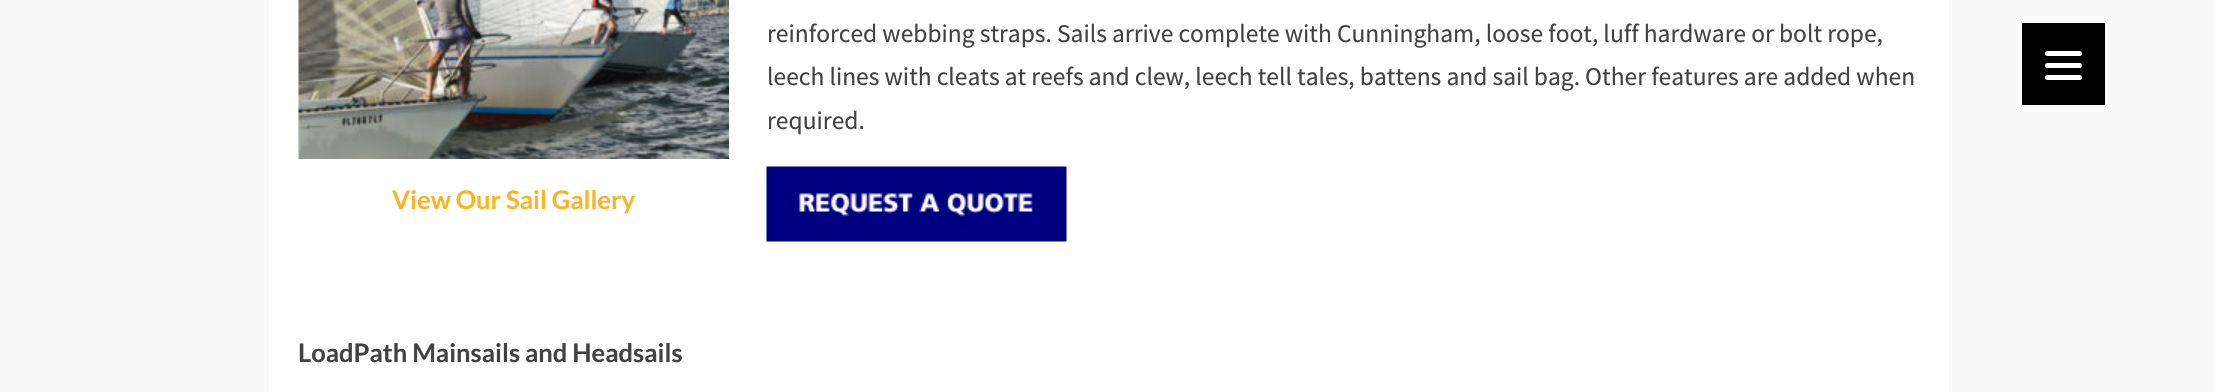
static SkFont makeFont(const char* family, int weight, float size, bool italic = false) {
  SkFontStyle style(weight, SkFontStyle::kNormal_Width,
    italic ? SkFontStyle::kItalic_Slant : SkFontStyle::kUpright_Slant);
  SkFont result(fontMgr->matchFamilyStyle(family, style), size);
  result.setSubpixel(true);
  return result;
}

static void text(SkCanvas* c, const char* s, float x, float y, const SkFont& font, SkColor color) {
  SkPaint ink(SkColor4f::FromColor(color));
  ink.setAntiAlias(true);
  c->drawString(s, x, y, font, ink);
}

static void box(SkCanvas* c, float l, float t, float r, float b, SkColor color) {
  SkPaint ink(SkColor4f::FromColor(color));
  ink.setAntiAlias(true);
  c->drawRect(SkRect::MakeLTRB(l, t, r, b), ink);
}

static void roundBox(SkCanvas* c, float l, float t, float r, float b, float radius, SkColor color) {
  SkPaint ink(SkColor4f::FromColor(color));
  ink.setAntiAlias(true);
  c->drawRoundRect(SkRect::MakeLTRB(l, t, r, b), radius, radius, ink);
}

static void picture(SkCanvas* c, const char* path, float l, float t, float r, float b) {
  auto image = SkImages::DeferredFromEncodedData(SkData::MakeFromFileName(path));
  c->drawImageRect(image, SkRect::MakeLTRB(l, t, r, b), SkSamplingOptions());
}

void draw(SkCanvas* c) {
  SkPaint paint;
  paint.setAntiAlias(true);
  c->clear(0xfff9f9f9);
  box(c, 269, 0, 1949, 392, 0xffffffff);
  SkFont face1 = makeFont("Source Sans Pro", 400, 25.5f);
  text(c, "reinforced webbing straps. Sails arrive complete with Cunningham, loose foot, luff hardware or bolt rope,", 767, 42, face1, 0xff424242);
  text(c, "leech lines with cleats at reefs and clew, leech tell tales, battens and sail bag. Other features are added when", 767, 85, face1, 0xff424242);
  text(c, "required.", 767, 129, face1, 0xff424242);
  picture(c, "img_01.png", 298, 0, 729, 159);
  SkFont face2 = makeFont("Lato", 700, 25.5f);
  text(c, "View Our Sail Gallery", 392, 209, face2, 0xfffab526);
  picture(c, "img_02.png", 766, 166, 1067, 242);
  text(c, "LoadPath Mainsails and Headsails", 298, 362, face2, 0xff424242);
  box(c, 2022, 23, 2105, 105, 0xff000000);
  roundBox(c, 2045, 63, 2082, 68, 2.5f, 0xffffffff);
  roundBox(c, 2045, 51, 2082, 56, 2.5f, 0xffffffff);
  roundBox(c, 2045, 75, 2082, 80, 2.5f, 0xffffffff);
}
